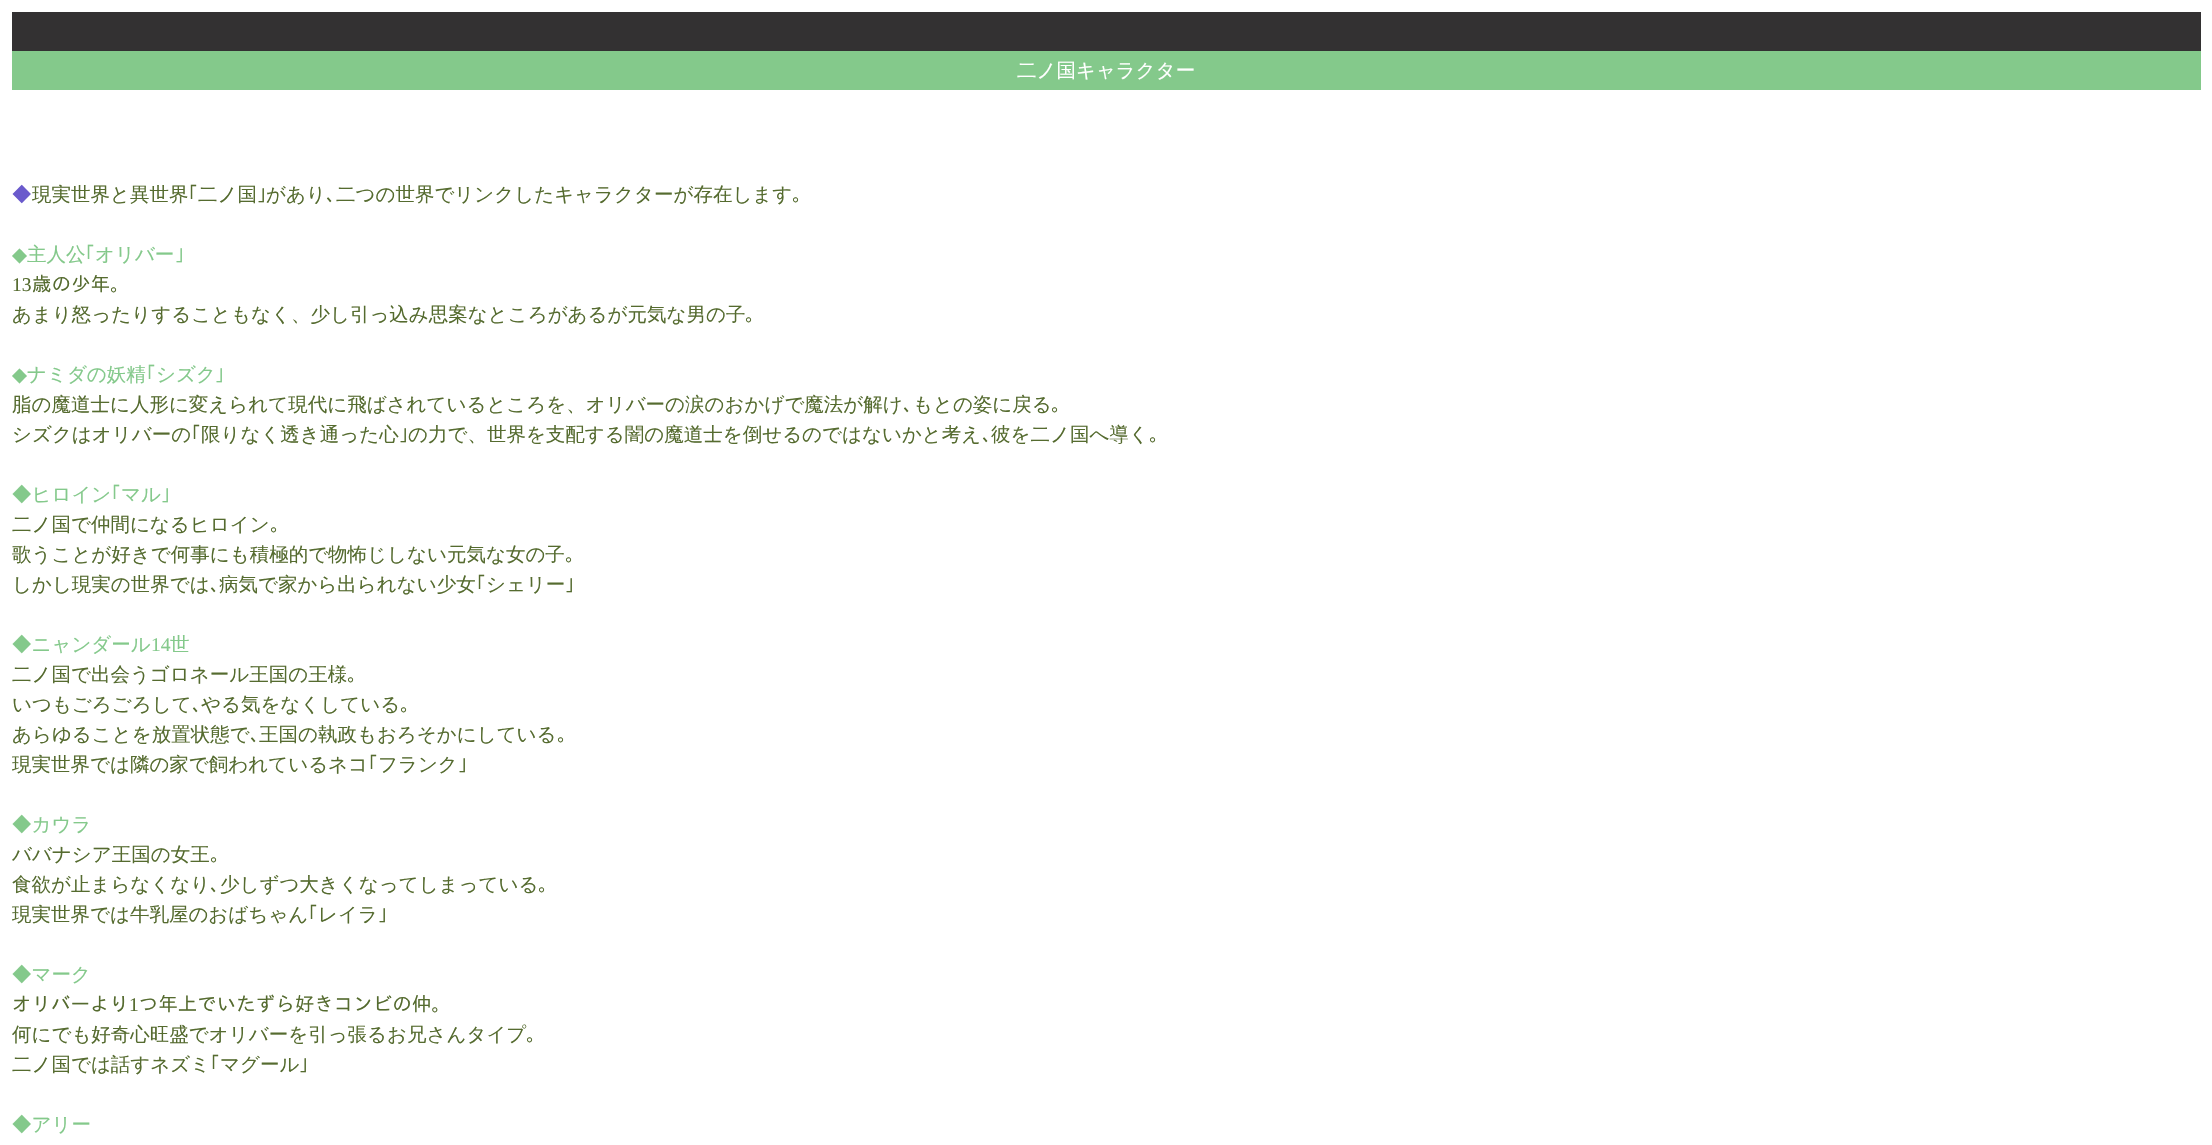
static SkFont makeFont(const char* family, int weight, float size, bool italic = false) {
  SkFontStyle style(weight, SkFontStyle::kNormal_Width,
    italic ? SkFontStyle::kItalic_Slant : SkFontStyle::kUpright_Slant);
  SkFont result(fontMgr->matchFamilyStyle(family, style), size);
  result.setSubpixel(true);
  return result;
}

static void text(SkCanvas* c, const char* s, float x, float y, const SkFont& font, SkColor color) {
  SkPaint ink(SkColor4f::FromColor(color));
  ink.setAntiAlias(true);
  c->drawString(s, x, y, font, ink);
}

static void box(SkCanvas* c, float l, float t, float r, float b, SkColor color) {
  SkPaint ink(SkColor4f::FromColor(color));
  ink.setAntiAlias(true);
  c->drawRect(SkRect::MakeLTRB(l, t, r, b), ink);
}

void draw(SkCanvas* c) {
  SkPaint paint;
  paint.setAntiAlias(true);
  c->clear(0xffffffff);
  box(c, 12, 12, 2201, 51, 0xff333132);
  box(c, 12, 51, 2201, 90, 0xff84c98b);
  SkFont face1 = makeFont("WenQuanYi Zen Hei", 500, 19.5f);
  text(c, "二ノ国キャラクター", 1017, 77, face1, 0xffffffff);
  text(c, "◆", 12, 201, face1, 0xff6a5acc);
  text(c, "現実世界と異世界", 32, 201, face1, 0xff556b2f);
  SkFont face2 = makeFont("IPAGothic", 400, 19.5f);
  text(c, "｢", 188, 201, face2, 0xff556b2f);
  text(c, "二ノ国", 198, 201, face1, 0xff556b2f);
  text(c, "｣", 257, 201, face2, 0xff556b2f);
  text(c, "があり", 266, 201, face1, 0xff556b2f);
  text(c, "､", 326, 201, face2, 0xff556b2f);
  text(c, "二つの世界でリンクしたキャラクターが存在します", 336, 201, face1, 0xff556b2f);
  text(c, "｡", 792, 201, face2, 0xff556b2f);
  SkFont face3 = makeFont("DejaVu Sans", 400, 19.5f);
  text(c, "◆", 12, 261, face3, 0xff84c98b);
  text(c, "主人公", 27, 261, face1, 0xff84c98b);
  text(c, "｢", 85, 261, face2, 0xff84c98b);
  text(c, "オリバー", 95, 261, face1, 0xff84c98b);
  text(c, "｣", 175, 261, face2, 0xff84c98b);
  SkFont face4 = makeFont("Liberation Serif", 400, 19.5f);
  text(c, "13", 12, 291, face4, 0xff556b2f);
  text(c, "歳の少年｡", 32, 291, face2, 0xff556b2f);
  text(c, "あまり怒ったりすることもなく、少し引っ込み思案なところがあるが元気な男の子", 12, 321, face1, 0xff556b2f);
  text(c, "｡", 745, 321, face2, 0xff556b2f);
  text(c, "◆", 12, 381, face3, 0xff84c98b);
  text(c, "ナミダの妖精", 27, 381, face1, 0xff84c98b);
  text(c, "｢", 146, 381, face2, 0xff84c98b);
  text(c, "シズク", 156, 381, face1, 0xff84c98b);
  text(c, "｣", 215, 381, face2, 0xff84c98b);
  text(c, "脂の魔道士に人形に変えられて現代に飛ばされているところを、オリバーの涙のおかげで魔法が解け", 12, 411, face1, 0xff556b2f);
  text(c, "､", 903, 411, face2, 0xff556b2f);
  text(c, "もとの姿に戻る", 913, 411, face1, 0xff556b2f);
  text(c, "｡", 1051, 411, face2, 0xff556b2f);
  text(c, "シズクはオリバーの", 12, 441, face1, 0xff556b2f);
  text(c, "｢", 191, 441, face2, 0xff556b2f);
  text(c, "限りなく透き通った心", 201, 441, face1, 0xff556b2f);
  text(c, "｣", 399, 441, face2, 0xff556b2f);
  text(c, "の力で、世界を支配する闇の魔道士を倒せるのではないかと考え", 408, 441, face1, 0xff556b2f);
  text(c, "､", 982, 441, face2, 0xff556b2f);
  text(c, "彼を二ノ国へ導く", 991, 441, face1, 0xff556b2f);
  text(c, "｡", 1149, 441, face2, 0xff556b2f);
  text(c, "◆ヒロイン", 12, 501, face1, 0xff84c98b);
  text(c, "｢", 111, 501, face2, 0xff84c98b);
  text(c, "マル", 121, 501, face1, 0xff84c98b);
  text(c, "｣", 161, 501, face2, 0xff84c98b);
  text(c, "二ノ国で仲間になるヒロイン", 12, 531, face1, 0xff556b2f);
  text(c, "｡", 270, 531, face2, 0xff556b2f);
  text(c, "歌うことが好きで何事にも積極的で物怖じしない元気な女の子", 12, 561, face1, 0xff556b2f);
  text(c, "｡", 565, 561, face2, 0xff556b2f);
  text(c, "しかし現実の世界では", 12, 591, face1, 0xff556b2f);
  text(c, "､", 210, 591, face2, 0xff556b2f);
  text(c, "病気で家から出られない少女", 219, 591, face1, 0xff556b2f);
  text(c, "｢", 476, 591, face2, 0xff556b2f);
  text(c, "シェリー", 486, 591, face1, 0xff556b2f);
  text(c, "｣", 565, 591, face2, 0xff556b2f);
  text(c, "◆ニャンダール", 12, 651, face1, 0xff84c98b);
  text(c, "14", 151, 651, face4, 0xff84c98b);
  text(c, "世", 170, 651, face1, 0xff84c98b);
  text(c, "二ノ国で出会うゴロネール王国の王様", 12, 681, face1, 0xff556b2f);
  text(c, "｡", 347, 681, face2, 0xff556b2f);
  text(c, "いつもごろごろして", 12, 711, face1, 0xff556b2f);
  text(c, "､", 192, 711, face2, 0xff556b2f);
  text(c, "やる気をなくしている", 201, 711, face1, 0xff556b2f);
  text(c, "｡", 400, 711, face2, 0xff556b2f);
  text(c, "あらゆることを放置状態で", 12, 741, face1, 0xff556b2f);
  text(c, "､", 250, 741, face2, 0xff556b2f);
  text(c, "王国の執政もおろそかにしている", 259, 741, face1, 0xff556b2f);
  text(c, "｡", 557, 741, face2, 0xff556b2f);
  text(c, "現実世界では隣の家で飼われているネコ", 12, 771, face1, 0xff556b2f);
  text(c, "｢", 368, 771, face2, 0xff556b2f);
  text(c, "フランク", 378, 771, face1, 0xff556b2f);
  text(c, "｣", 458, 771, face2, 0xff556b2f);
  text(c, "◆カウラ", 12, 831, face1, 0xff84c98b);
  text(c, "ババナシア王国の女王", 12, 861, face1, 0xff556b2f);
  text(c, "｡", 210, 861, face2, 0xff556b2f);
  text(c, "食欲が止まらなくなり", 12, 891, face1, 0xff556b2f);
  text(c, "､", 210, 891, face2, 0xff556b2f);
  text(c, "少しずつ大きくなってしまっている", 220, 891, face1, 0xff556b2f);
  text(c, "｡", 538, 891, face2, 0xff556b2f);
  text(c, "現実世界では牛乳屋のおばちゃん", 12, 921, face1, 0xff556b2f);
  text(c, "｢", 308, 921, face2, 0xff556b2f);
  text(c, "レイラ", 318, 921, face1, 0xff556b2f);
  text(c, "｣", 378, 921, face2, 0xff556b2f);
  text(c, "◆マーク", 12, 981, face1, 0xff84c98b);
  text(c, "オリバーより つ年上でいたずら好きコンビの仲｡", 12, 1011, face2, 0xff556b2f);
  text(c, "1", 129, 1011, face4, 0xff556b2f);
  text(c, "何にでも好奇心旺盛でオリバーを引っ張るお兄さんタイプ", 12, 1041, face1, 0xff556b2f);
  text(c, "｡", 526, 1041, face2, 0xff556b2f);
  text(c, "二ノ国では話すネズミ", 12, 1071, face1, 0xff556b2f);
  text(c, "｢", 210, 1071, face2, 0xff556b2f);
  text(c, "マグール", 220, 1071, face1, 0xff556b2f);
  text(c, "｣", 299, 1071, face2, 0xff556b2f);
  text(c, "◆アリー", 12, 1131, face1, 0xff84c98b);
}
